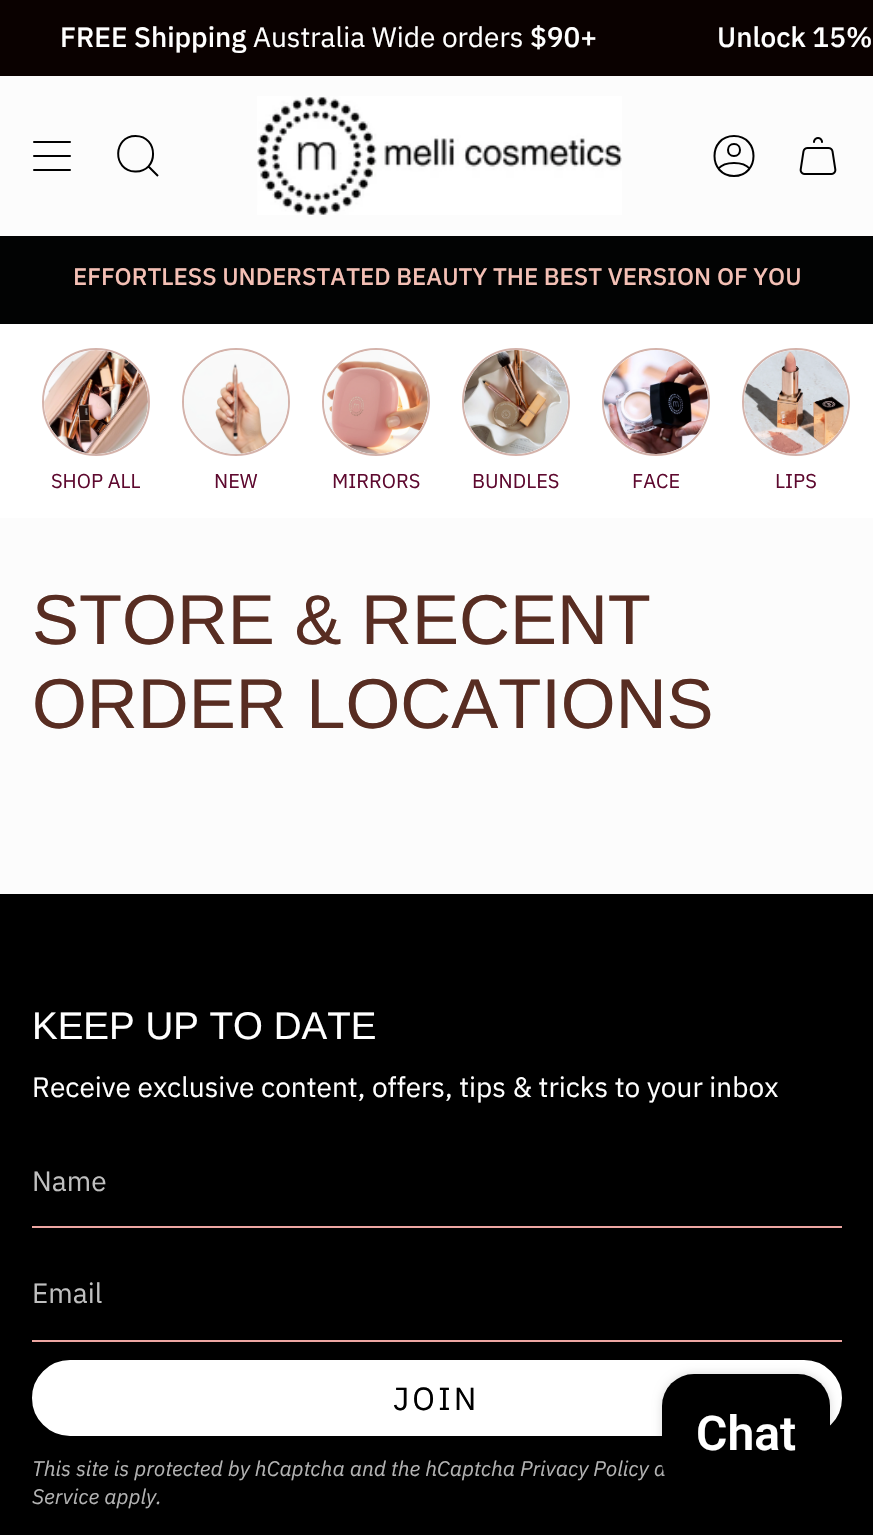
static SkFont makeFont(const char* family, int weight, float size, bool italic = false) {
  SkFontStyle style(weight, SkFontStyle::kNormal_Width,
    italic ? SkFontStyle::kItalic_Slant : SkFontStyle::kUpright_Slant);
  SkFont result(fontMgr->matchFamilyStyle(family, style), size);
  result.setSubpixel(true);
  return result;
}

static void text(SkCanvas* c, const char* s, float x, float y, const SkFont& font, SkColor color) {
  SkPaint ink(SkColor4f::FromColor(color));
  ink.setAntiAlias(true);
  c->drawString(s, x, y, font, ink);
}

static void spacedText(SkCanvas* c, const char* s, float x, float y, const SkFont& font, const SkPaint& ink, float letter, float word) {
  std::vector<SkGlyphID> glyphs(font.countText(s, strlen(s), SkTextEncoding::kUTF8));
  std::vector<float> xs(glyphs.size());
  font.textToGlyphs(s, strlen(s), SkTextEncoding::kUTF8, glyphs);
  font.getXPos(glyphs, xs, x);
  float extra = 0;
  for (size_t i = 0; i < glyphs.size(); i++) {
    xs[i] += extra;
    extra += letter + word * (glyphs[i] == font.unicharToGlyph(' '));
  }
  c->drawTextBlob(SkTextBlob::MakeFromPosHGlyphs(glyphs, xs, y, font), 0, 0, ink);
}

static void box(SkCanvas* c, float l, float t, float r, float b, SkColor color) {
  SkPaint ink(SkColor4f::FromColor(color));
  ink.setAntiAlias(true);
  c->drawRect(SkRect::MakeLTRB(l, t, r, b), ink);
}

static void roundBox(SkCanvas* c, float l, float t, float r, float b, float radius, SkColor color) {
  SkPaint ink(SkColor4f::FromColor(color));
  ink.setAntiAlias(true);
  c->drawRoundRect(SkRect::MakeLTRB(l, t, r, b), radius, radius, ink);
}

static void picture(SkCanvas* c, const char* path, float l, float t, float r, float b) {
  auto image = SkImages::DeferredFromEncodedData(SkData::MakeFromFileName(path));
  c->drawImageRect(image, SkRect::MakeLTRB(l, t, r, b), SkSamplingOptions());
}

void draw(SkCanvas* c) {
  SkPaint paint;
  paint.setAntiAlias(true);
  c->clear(0xfffcfcfc);
  box(c, 0, 0, 873, 76, 0xff0a0100);
  SkFont face1 = makeFont("IBM Plex Sans", 500, 28);
  text(c, "FREE Shipping", 60, 47, face1, 0xffffffff);
  SkFont face2 = makeFont("IBM Plex Sans", 400, 28);
  text(c, "Australia Wide orders", 253, 47, face2, 0xffffffff);
  text(c, "$90+", 530, 47, face1, 0xffffffff);
  text(c, "Unlock 15%", 717, 47, face1, 0xffffffff);
  paint.setStyle(SkPaint::kStroke_Style);
  paint.setStrokeWidth(2);
  paint.setStrokeCap(SkPaint::kRound_Cap);
  paint.setStrokeJoin(SkPaint::kRound_Join);
  paint.setColor(0xff000000);
  c->drawPath(SkPathBuilder().moveTo(34, 142).lineTo(70, 142).moveTo(34, 156).lineTo(70, 156).moveTo(34, 170).lineTo(70, 170).detach(), paint);
  paint.setStrokeCap(SkPaint::kButt_Cap);
  paint.setStrokeJoin(SkPaint::kMiter_Join);
  c->drawPath(SkPathBuilder().moveTo(135.5f, 136).cubicTo(159, 136, 159, 172.5f, 135, 171.5f).cubicTo(112, 170.5f, 113, 136, 135.5f, 136).close().moveTo(148, 166).lineTo(158, 176).detach(), paint);
  picture(c, "img_01.png", 257, 96, 622, 215);
  paint.setStrokeCap(SkPaint::kRound_Cap);
  paint.setStrokeJoin(SkPaint::kRound_Join);
  c->drawPath(SkPathBuilder().moveTo(734, 136).cubicTo(708, 136, 708, 176, 734, 176).cubicTo(760, 176, 760, 136, 734, 136).close().moveTo(718.5f, 168.5f).cubicTo(724.5f, 161, 743.5f, 161, 749.5f, 168.5f).moveTo(734, 156).cubicTo(742, 156, 742, 144, 734, 144).cubicTo(726, 144, 726, 156, 734, 156).close().detach(), paint);
  picture(c, "img_02.png", 799, 137, 837, 175);
  box(c, 0, 236, 873, 324, 0xff020303);
  SkFont face3 = makeFont("IBM Plex Sans", 500, 24);
  text(c, "EFFORTLESS UNDERSTATED BEAUTY THE BEST VERSION OF YOU", 73, 285, face3, 0xfff4c0b5);
  box(c, 0, 324, 873, 518, 0xffffffff);
  paint.setStrokeCap(SkPaint::kButt_Cap);
  paint.setStrokeJoin(SkPaint::kMiter_Join);
  paint.setColor(0xffd4b3ab);
  c->drawCircle(96, 402, 53, paint);
  picture(c, "img_03.png", 44, 350, 148, 454);
  SkFont face4 = makeFont("IBM Plex Sans", 400, 20);
  text(c, "SHOP ALL", 51, 488, face4, 0xff5e092f);
  c->drawCircle(236, 402, 53, paint);
  picture(c, "img_04.png", 184, 350, 288, 454);
  text(c, "NEW", 214, 488, face4, 0xff5e092f);
  c->drawCircle(376, 402, 53, paint);
  picture(c, "img_05.png", 324, 350, 428, 454);
  text(c, "MIRRORS", 332, 488, face4, 0xff5e092f);
  c->drawCircle(516, 402, 53, paint);
  picture(c, "img_06.png", 464, 350, 568, 454);
  text(c, "BUNDLES", 472, 488, face4, 0xff5e092f);
  c->drawCircle(656, 402, 53, paint);
  picture(c, "img_07.png", 604, 350, 708, 454);
  text(c, "FACE", 632, 488, face4, 0xff5e092f);
  c->drawCircle(796, 402, 53, paint);
  picture(c, "img_08.png", 744, 350, 848, 454);
  text(c, "LIPS", 775, 488, face4, 0xff5e092f);
  SkFont face5 = makeFont("Liberation Sans", 400, 70.5f);
  text(c, "STORE & RECENT", 32, 644, face5, 0xff582d22);
  text(c, "ORDER LOCATIONS", 32, 728, face5, 0xff582d22);
  box(c, 0, 894, 873, 1535, 0xff000000);
  SkFont face6 = makeFont("Liberation Sans", 400, 38.5f);
  text(c, "KEEP UP TO DATE", 32, 1039, face6, 0xffffffff);
  text(c, "Receive exclusive content, offers, tips & tricks to your inbox", 32, 1097, face2, 0xffffffff);
  box(c, 32, 1226, 842, 1228, 0xffeda6a2);
  text(c, "Name", 32, 1191, face2, 0xffbfbfbf);
  box(c, 32, 1340, 842, 1342, 0xffeda6a2);
  text(c, "Email", 32, 1303, face2, 0xffbfbfbf);
  paint.setStyle(SkPaint::kFill_Style);
  paint.setColor(0xffffffff);
  c->drawRoundRect(SkRect::MakeLTRB(33, 1361, 841, 1435), 37, 37, paint);
  paint.setStyle(SkPaint::kStroke_Style);
  c->drawRoundRect(SkRect::MakeLTRB(33, 1361, 841, 1435), 37, 37, paint);
  SkFont face7 = makeFont("IBM Plex Sans", 400, 32);
  paint.setStyle(SkPaint::kFill_Style);
  paint.setColor(0xff000000);
  spacedText(c, "JOIN", 393, 1410, face7, paint, 3, 0);
  SkFont face8 = makeFont("IBM Plex Sans", 400, 21, true);
  text(c, "This site is protected by hCaptcha and the hCaptcha Privacy Policy a", 32, 1476, face8, 0xffb3b3b3);
  text(c, "Service apply.", 32, 1504, face8, 0xffb3b3b3);
  paint.setColor(0x26000000);
  paint.setMaskFilter(SkMaskFilter::MakeBlur(kNormal_SkBlurStyle, 5));
  c->drawRoundRect(SkRect::MakeLTRB(662, 1374, 830, 1494), 32, 32, paint);
  paint.setMaskFilter(nullptr);
  roundBox(c, 662, 1374, 830, 1494, 32, 0xff000000);
  SkFont face9 = makeFont("Roboto", 600, 48);
  text(c, "Chat", 696, 1450, face9, 0xffffffff);
}
